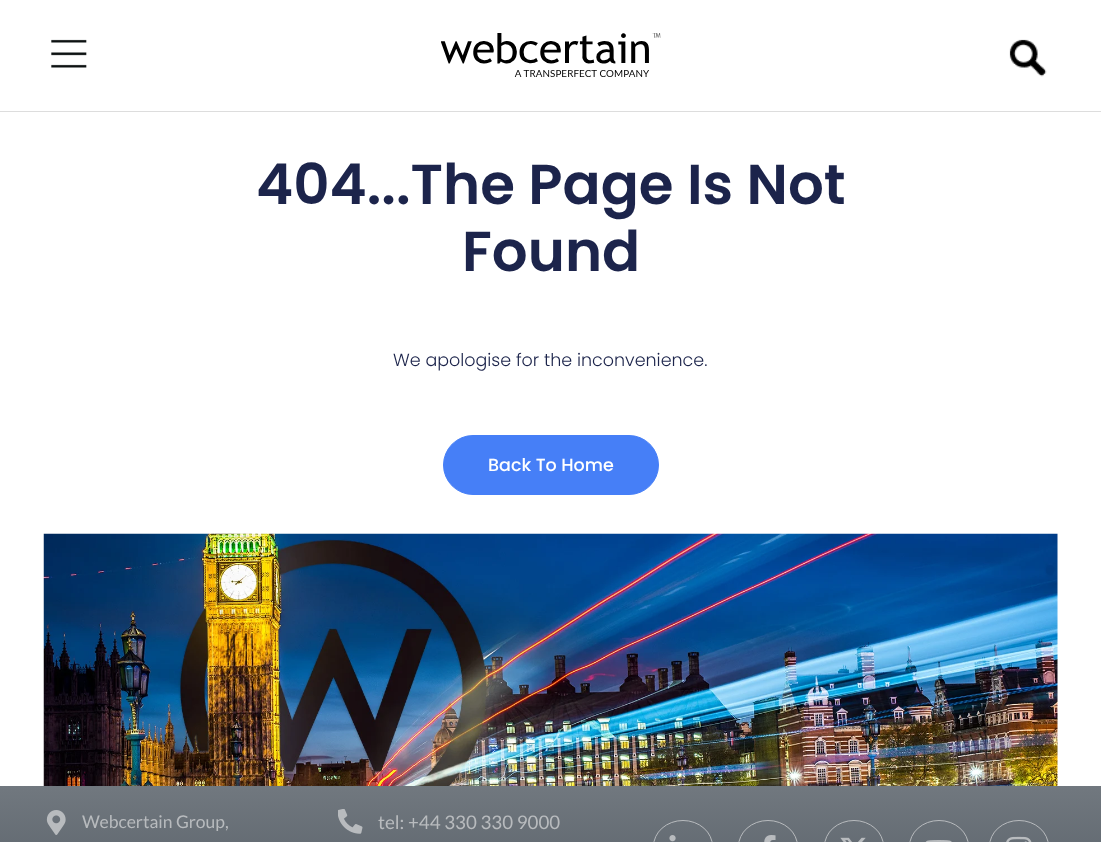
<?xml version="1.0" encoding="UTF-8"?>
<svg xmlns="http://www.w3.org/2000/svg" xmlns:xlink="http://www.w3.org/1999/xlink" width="1101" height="842">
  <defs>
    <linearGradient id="g1" gradientUnits="userSpaceOnUse" x1="551" y1="786" x2="551" y2="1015"><stop offset="0" stop-color="#71787f" /><stop offset="1" stop-color="#424b54" /></linearGradient>
  </defs>
  <rect width="100%" height="100%" fill="#ffffff" />
  <rect y="111" width="1101" height="1" fill="#dddddd" />
  <image x="51" y="39" width="36" height="29" xlink:href="image1.png" />
  <image x="441" y="33" width="220" height="44" xlink:href="image2.png" />
  <image x="1009" y="39" width="38" height="38" xlink:href="image3.png" />
  <rect x="443.5" y="435.5" width="215" height="59" rx="29.5" fill="#467ff7" stroke="#467ff7" />
  <image x="43" y="533" width="1015" height="253" xlink:href="image4.png" />
  <rect y="786" width="1101" height="56" fill="url(#g1)" />
  <image x="46" y="810" width="20" height="25" xlink:href="image5.png" />
  <image x="338" y="809" width="25" height="25" xlink:href="image6.png" />
  <rect x="653.5" y="820.5" width="59" height="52" rx="29.5" fill="none" stroke="#b8bbbe" />
  <image x="669" y="835" width="7" height="7" xlink:href="image7.png" />
  <rect x="738.5" y="820.5" width="59" height="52" rx="29.5" fill="none" stroke="#b8bbbe" />
  <image x="764" y="835" width="12" height="7" xlink:href="image8.png" />
  <rect x="824.5" y="820.5" width="59" height="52" rx="29.5" fill="none" stroke="#b8bbbe" />
  <image x="840" y="837" width="26" height="5" xlink:href="image9.png" />
  <rect x="909.5" y="820.5" width="59" height="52" rx="29.5" fill="none" stroke="#b8bbbe" />
  <image x="925" y="840" width="27" height="2" xlink:href="image10.png" />
  <rect x="989.5" y="820.5" width="59" height="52" rx="29.5" fill="none" stroke="#b8bbbe" />
  <image x="1006" y="836" width="26" height="6" xlink:href="image11.png" />
  <text x="256" y="204" style="font-family: Poppins; font-size: 56.25px; font-weight: 600; fill: #1c244b">404...The Page Is Not</text>
  <text x="462" y="271" style="font-family: Poppins; font-size: 56.25px; font-weight: 600; fill: #1c244b">Found</text>
  <text x="393" y="366" style="font-family: Poppins; font-size: 17.5px; font-weight: 300; fill: #1c244b">We apologise for the inconvenience.</text>
  <text x="488" y="471" style="font-family: Poppins; font-size: 17.5px; font-weight: 500; fill: #ffffff">Back To Home</text>
  <text x="82" y="828" style="font-family: Lato; font-size: 17.5px; fill: #b8bbbe">Webcertain Group,</text>
  <text x="378" y="829" style="font-family: Lato; font-size: 18.75px; fill: #b8bbbe">tel: +44 330 330 9000</text>
</svg>
